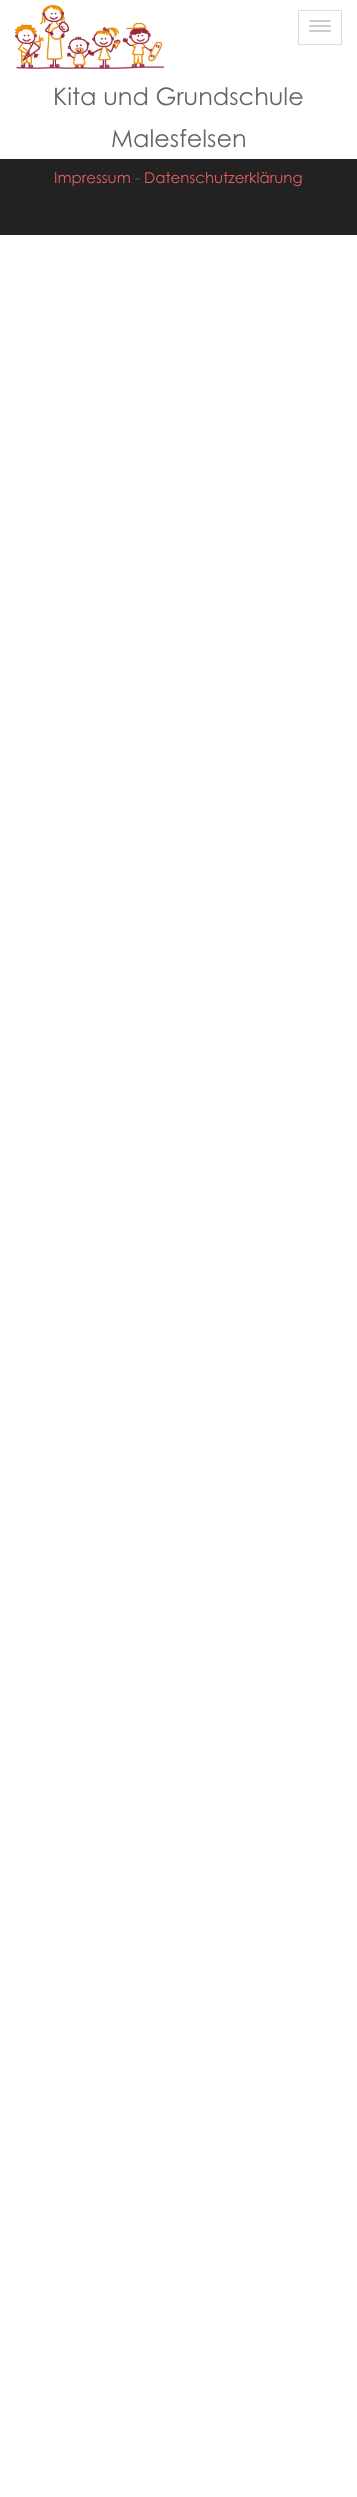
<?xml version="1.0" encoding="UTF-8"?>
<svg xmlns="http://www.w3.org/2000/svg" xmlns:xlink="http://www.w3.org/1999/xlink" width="357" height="2497">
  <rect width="100%" height="100%" fill="#ffffff" />
  <image x="15" y="5" width="149" height="64" xlink:href="image1.png" />
  <rect x="298.5" y="10.5" width="43" height="34" fill="none" stroke="#dddddd" />
  <rect x="309" y="20" width="22" height="2" rx="1" fill="#cccccc" />
  <rect x="309" y="25" width="22" height="2" rx="1" fill="#cccccc" />
  <rect x="309" y="30" width="22" height="2" rx="1" fill="#cccccc" />
  <rect y="159" width="357" height="76" fill="#222222" />
  <text x="53" y="105" style="font-family: Century Gothic; font-size: 24px; fill: #63656a">Kita und Grundschule</text>
  <text x="111" y="147" style="font-family: Century Gothic; font-size: 24px; fill: #63656a">Malesfelsen</text>
  <text x="54" y="183" style="font-family: Century Gothic; font-size: 15px; fill: #e75d5d">Impressum</text>
  <text x="135" y="183" style="font-family: Century Gothic; font-size: 15px; fill: #63656a">-</text>
  <text x="144" y="183" style="font-family: Century Gothic; font-size: 15px; fill: #e75d5d">Datenschutzerklärung</text>
</svg>
